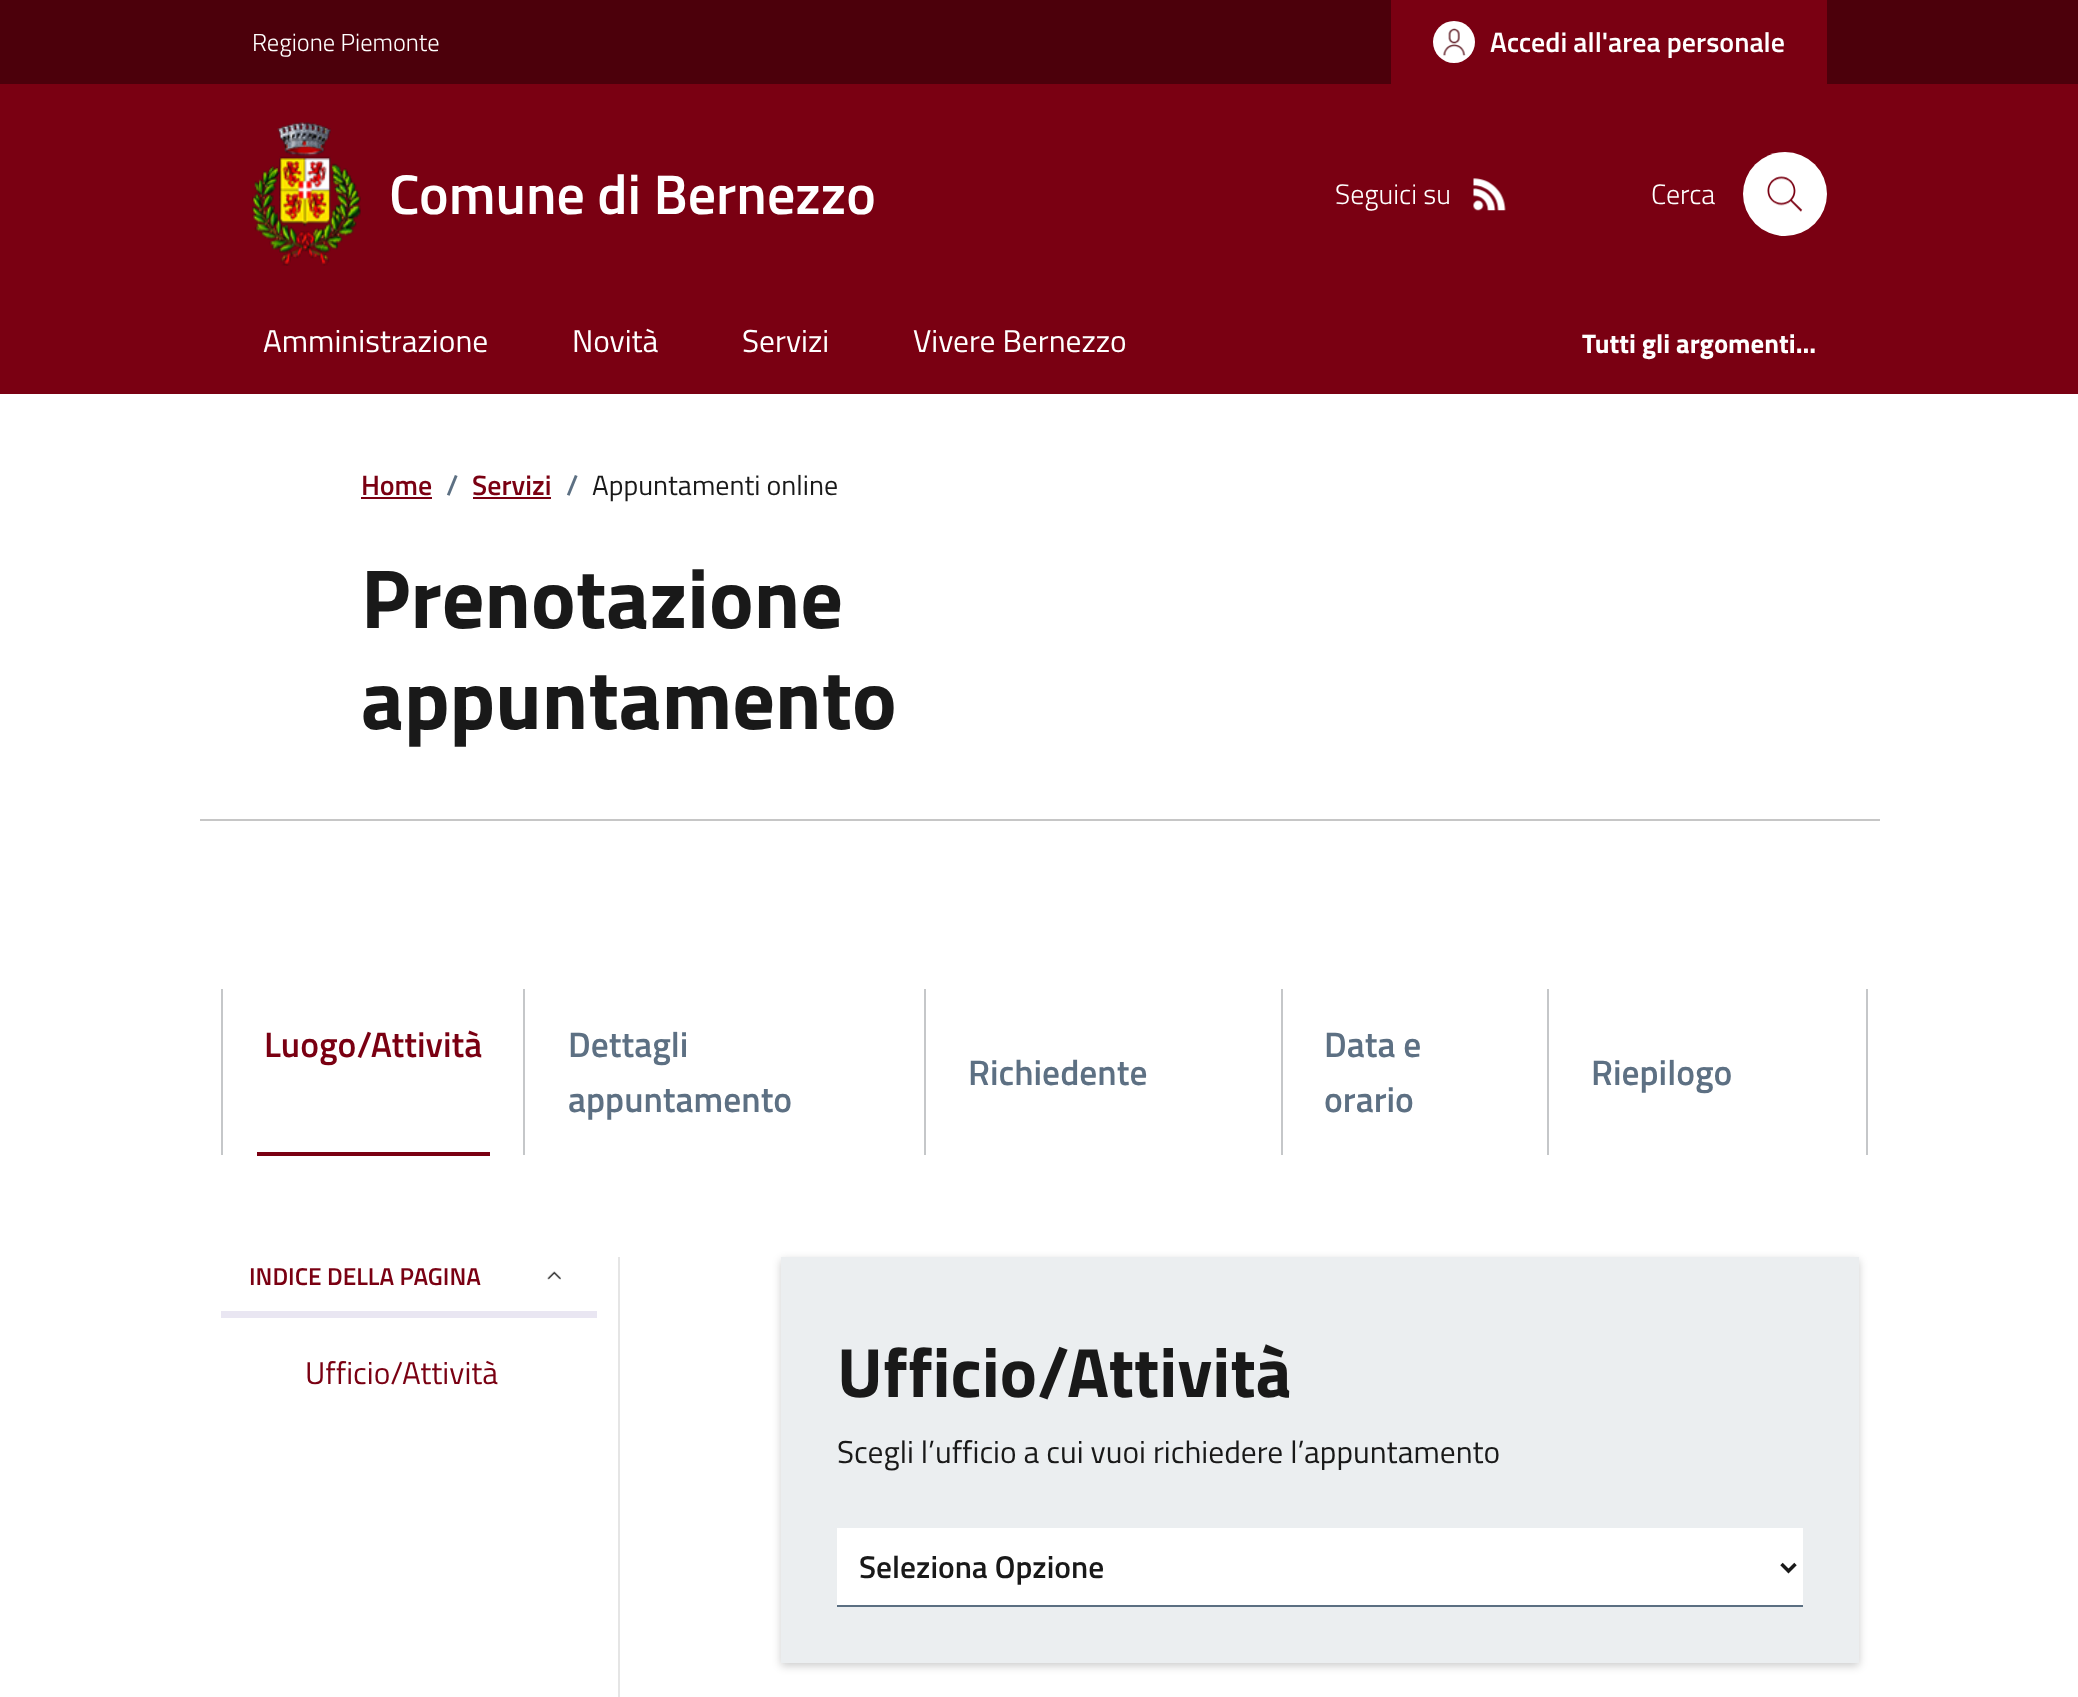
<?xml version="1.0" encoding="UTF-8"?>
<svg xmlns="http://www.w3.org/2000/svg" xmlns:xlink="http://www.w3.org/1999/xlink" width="2078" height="1697">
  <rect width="100%" height="100%" fill="#ffffff" />
  <rect width="2078" height="84" fill="#4c000b" />
  <rect x="1391" width="436" height="84" fill="#7a0012" />
  <circle cx="1454" cy="42" r="21" fill="#ffffff" />
  <image x="1443" y="28" width="23" height="28" xlink:href="image1.png" />
  <rect y="84" width="2078" height="310" fill="#7a0012" />
  <image x="252" y="122" width="109" height="144" xlink:href="image2.png" />
  <image x="1473" y="178" width="33" height="33" xlink:href="image3.png" />
  <circle cx="1785" cy="194" r="42" fill="#ffffff" />
  <image x="1767" y="176" width="36" height="36" xlink:href="image4.png" />
  <rect x="361" y="497" width="71" height="2" fill="#7a0012" />
  <rect x="473" y="497" width="78" height="2" fill="#7a0012" />
  <rect x="200" y="819" width="1680" height="2" fill="#c6c6c6" />
  <rect x="221" y="989" width="2" height="166" fill="#c5c7c9" />
  <rect x="257" y="1152" width="233" height="4" fill="#7a0012" />
  <rect x="523" y="989" width="2" height="166" fill="#c5c7c9" />
  <rect x="924" y="989" width="2" height="166" fill="#c5c7c9" />
  <rect x="1281" y="989" width="2" height="166" fill="#c5c7c9" />
  <rect x="1866" y="989" width="2" height="166" fill="#c5c7c9" />
  <rect x="1547" y="989" width="2" height="166" fill="#c5c7c9" />
  <rect x="618" y="1257" width="2" height="440" fill="#e5e5e5" />
  <image x="547" y="1271" width="14" height="9" xlink:href="image5.png" />
  <rect x="221" y="1311" width="376" height="7" fill="#e9e6f2" />
  <rect x="781" y="1260" width="1078" height="406" fill="#000000" fill-opacity="0.2" filter="blur(4px)" />
  <rect x="781" y="1257" width="1078" height="406" fill="#ebeef0" />
  <rect x="837" y="1528" width="966" height="77" fill="#ffffff" />
  <rect x="837" y="1605" width="966" height="2" fill="#5b6f82" />
  <path d="M 1781.5 1564 l 7 7 l 7 -7" fill="none" stroke="#1a1a1a" stroke-width="3.5" />
  <text x="252" y="51" style="font-family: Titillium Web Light; font-size: 24.5px; font-weight: 300; fill: #ffffff">Regione Piemonte</text>
  <text x="1490" y="52" style="font-family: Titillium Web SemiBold; font-size: 28px; font-weight: 600; fill: #ffffff">Accedi all'area personale</text>
  <text x="389" y="214" style="font-family: Titillium Web SemiBold; font-size: 56px; font-weight: 600; fill: #ffffff">Comune di Bernezzo</text>
  <text x="1335" y="204" style="font-family: Titillium Web Light; font-size: 28px; font-weight: 300; fill: #ffffff">Seguici su</text>
  <text x="1651" y="204" style="font-family: Titillium Web Light; font-size: 28px; font-weight: 300; fill: #ffffff">Cerca</text>
  <text x="263" y="352" style="font-family: Titillium Web; font-size: 31.5px; fill: #ffffff">Amministrazione</text>
  <text x="572" y="352" style="font-family: Titillium Web; font-size: 31.5px; fill: #ffffff">Novità</text>
  <text x="742" y="352" style="font-family: Titillium Web; font-size: 31.5px; fill: #ffffff">Servizi</text>
  <text x="913" y="352" style="font-family: Titillium Web; font-size: 31.5px; fill: #ffffff">Vivere Bernezzo</text>
  <text x="1582" y="353" style="font-family: Titillium Web; font-size: 26.75px; font-weight: bold; fill: #ffffff">Tutti gli argomenti...</text>
  <text x="361" y="495" style="font-family: Titillium Web SemiBold; font-size: 28px; font-weight: 600; fill: #7a0012">Home</text>
  <text x="446" y="495" style="font-family: Titillium Web SemiBold; font-size: 28px; font-weight: 600; fill: #5d7083">/</text>
  <text x="472" y="495" style="font-family: Titillium Web SemiBold; font-size: 28px; font-weight: 600; fill: #7a0012">Servizi</text>
  <text x="566" y="495" style="font-family: Titillium Web SemiBold; font-size: 28px; font-weight: 600; fill: #5d7083">/</text>
  <text x="592" y="495" style="font-family: Titillium Web; font-size: 28px; fill: #191919">Appuntamenti online</text>
  <text x="361" y="628" style="font-family: Titillium Web; font-size: 84px; font-weight: bold; fill: #191919">Prenotazione</text>
  <text x="361" y="729" style="font-family: Titillium Web; font-size: 84px; font-weight: bold; fill: #191919">appuntamento</text>
  <text x="264" y="1057" style="font-family: Titillium Web SemiBold; font-size: 35.5px; font-weight: 600; fill: #7a0012">Luogo/Attività</text>
  <text x="568" y="1057" style="font-family: Titillium Web SemiBold; font-size: 35.5px; font-weight: 600; fill: #5d7083">Dettagli</text>
  <text x="568" y="1112" style="font-family: Titillium Web SemiBold; font-size: 35.5px; font-weight: 600; fill: #5d7083">appuntamento</text>
  <text x="968" y="1085" style="font-family: Titillium Web SemiBold; font-size: 35.5px; font-weight: 600; fill: #5d7083">Richiedente</text>
  <text x="1324" y="1057" style="font-family: Titillium Web SemiBold; font-size: 35.5px; font-weight: 600; fill: #5d7083">Data e</text>
  <text x="1324" y="1112" style="font-family: Titillium Web SemiBold; font-size: 35.5px; font-weight: 600; fill: #5d7083">orario</text>
  <text x="1591" y="1085" style="font-family: Titillium Web SemiBold; font-size: 35.5px; font-weight: 600; fill: #5d7083">Riepilogo</text>
  <text x="249" y="1285" style="font-family: Titillium Web SemiBold; font-size: 24.5px; font-weight: 600; fill: #7a0012">INDICE DELLA PAGINA</text>
  <text x="305" y="1384" style="font-family: Titillium Web; font-size: 31.5px; fill: #7a0012">Ufficio/Attività</text>
  <text x="837" y="1397" style="font-family: Titillium Web; font-size: 70px; font-weight: bold; fill: #191919">Ufficio/Attività</text>
  <text x="837" y="1463" style="font-family: Titillium Web; font-size: 31.5px; fill: #191919">Scegli l’ufficio a cui vuoi richiedere l’appuntamento</text>
  <text x="859" y="1578" style="font-family: Titillium Web SemiBold; font-size: 31.5px; font-weight: 600; fill: #191919">Seleziona Opzione</text>
</svg>
